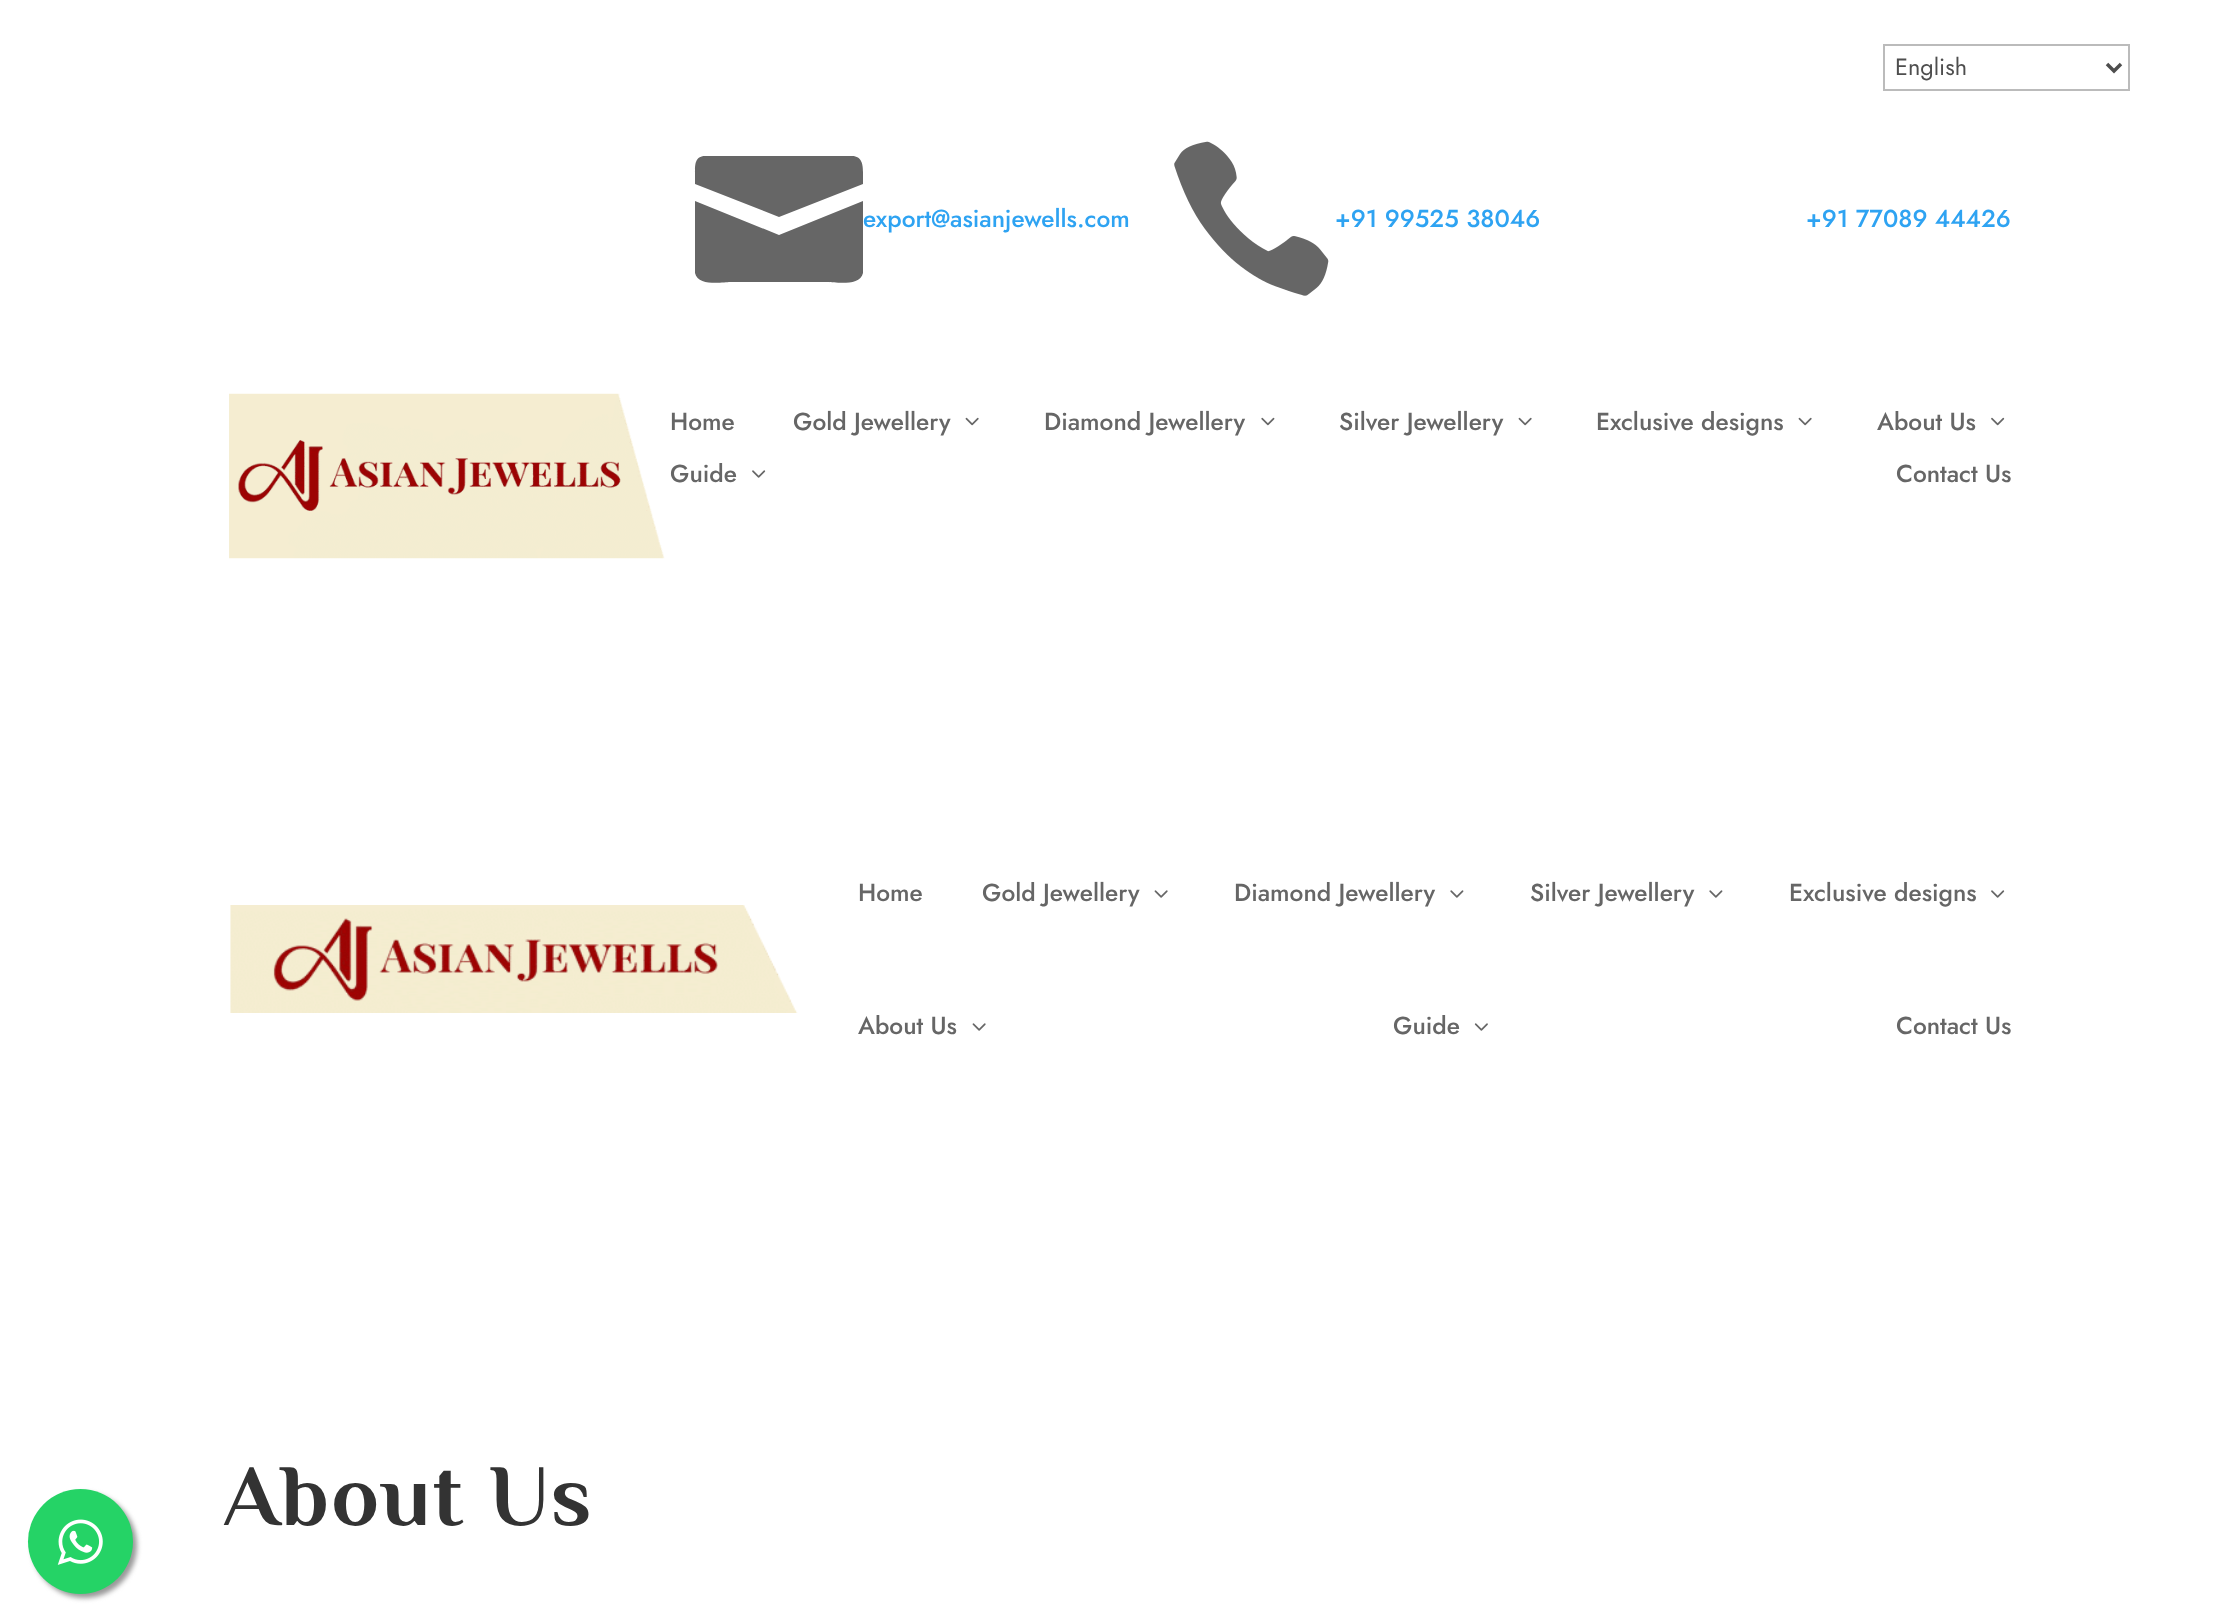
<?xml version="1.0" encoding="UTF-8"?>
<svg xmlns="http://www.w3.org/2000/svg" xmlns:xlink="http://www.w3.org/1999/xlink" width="2234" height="1619">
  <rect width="100%" height="100%" fill="#ffffff" />
  <rect x="1884" y="45" width="245" height="45" fill="none" stroke="#bbbbbb" stroke-width="2" />
  <path d="M 2107 64 l 7 7 l 7 -7" fill="none" stroke="#4e4e4e" stroke-width="3.5" />
  <path d="M 852 156 h -147 c -10 0 -10 9 -10 16 v 12 l 84 33 l 84 -33 v -12 c 0 -7 -1 -16 -11 -16 z m -157 45 v 72 c 3 14 29 9 35 9 h 98 c 6 0 32 5 35 -9 v -72 l -84 34 z" fill="#666666" />
  <image x="1174" y="141" width="155" height="155" xlink:href="image1.png" />
  <image x="229" y="393" width="436" height="166" xlink:href="image2.png" />
  <image x="965" y="417" width="14" height="9" xlink:href="image3.png" />
  <image x="1261" y="417" width="14" height="9" xlink:href="image4.png" />
  <image x="1518" y="417" width="14" height="9" xlink:href="image3.png" />
  <image x="1798" y="417" width="14" height="9" xlink:href="image3.png" />
  <image x="1991" y="417" width="14" height="9" xlink:href="image5.png" />
  <image x="752" y="470" width="14" height="8" xlink:href="image6.png" />
  <image x="230" y="905" width="568" height="108" xlink:href="image7.png" />
  <image x="1154" y="890" width="14" height="8" xlink:href="image8.png" />
  <image x="1450" y="890" width="14" height="8" xlink:href="image9.png" />
  <image x="1709" y="890" width="14" height="8" xlink:href="image9.png" />
  <image x="1991" y="890" width="14" height="8" xlink:href="image6.png" />
  <image x="972" y="1023" width="14" height="8" xlink:href="image8.png" />
  <image x="1474" y="1023" width="14" height="8" xlink:href="image10.png" />
  <rect x="32" y="1493" width="105" height="105" rx="52.5" fill="#999999" filter="blur(2.5px)" />
  <circle cx="80.5" cy="1541.5" r="52.5" fill="#25d366" />
  <image x="57" y="1519" width="46" height="46" xlink:href="image11.png" />
  <text x="1895" y="75" style="font-family: Jost; font-size: 23.5px; fill: #4e4e4e">English</text>
  <text x="863" y="227" style="font-family: Jost; font-size: 24.5px; font-weight: 500; fill: #2ea3f2">export@asianjewells.com</text>
  <text x="1335" y="227" style="font-family: Jost; font-size: 24.5px; font-weight: 500; fill: #2ea3f2">+91 99525 38046</text>
  <text x="1806" y="227" style="font-family: Jost; font-size: 24.5px; font-weight: 500; fill: #2ea3f2">+91 77089 44426</text>
  <text x="670" y="430" style="font-family: Jost; font-size: 24.5px; font-weight: 500; fill: #666666">Home</text>
  <text x="793" y="430" style="font-family: Jost; font-size: 24.5px; font-weight: 500; fill: #666666">Gold Jewellery</text>
  <text x="1044" y="430" style="font-family: Jost; font-size: 24.5px; font-weight: 500; fill: #666666">Diamond Jewellery</text>
  <text x="1339" y="430" style="font-family: Jost; font-size: 24.5px; font-weight: 500; fill: #666666">Silver Jewellery</text>
  <text x="1596" y="430" style="font-family: Jost; font-size: 24.5px; font-weight: 500; fill: #666666">Exclusive designs</text>
  <text x="1877" y="430" style="font-family: Jost; font-size: 24.5px; font-weight: 500; fill: #666666">About Us</text>
  <text x="670" y="482" style="font-family: Jost; font-size: 24.5px; font-weight: 500; fill: #666666">Guide</text>
  <text x="1896" y="482" style="font-family: Jost; font-size: 24.5px; font-weight: 500; fill: #666666">Contact Us</text>
  <text x="858" y="901" style="font-family: Jost; font-size: 24.5px; font-weight: 500; fill: #666666">Home</text>
  <text x="982" y="901" style="font-family: Jost; font-size: 24.5px; font-weight: 500; fill: #666666">Gold Jewellery</text>
  <text x="1234" y="901" style="font-family: Jost; font-size: 24.5px; font-weight: 500; fill: #666666">Diamond Jewellery</text>
  <text x="1530" y="901" style="font-family: Jost; font-size: 24.5px; font-weight: 500; fill: #666666">Silver Jewellery</text>
  <text x="1789" y="901" style="font-family: Jost; font-size: 24.5px; font-weight: 500; fill: #666666">Exclusive designs</text>
  <text x="858" y="1034" style="font-family: Jost; font-size: 24.5px; font-weight: 500; fill: #666666">About Us</text>
  <text x="1393" y="1034" style="font-family: Jost; font-size: 24.5px; font-weight: 500; fill: #666666">Guide</text>
  <text x="1896" y="1034" style="font-family: Jost; font-size: 24.5px; font-weight: 500; fill: #666666">Contact Us</text>
  <text x="223" y="1525" style="font-family: Philosopher; font-size: 87.5px; font-weight: bold; letter-spacing: 1.75px; fill: #333333">About Us</text>
</svg>
